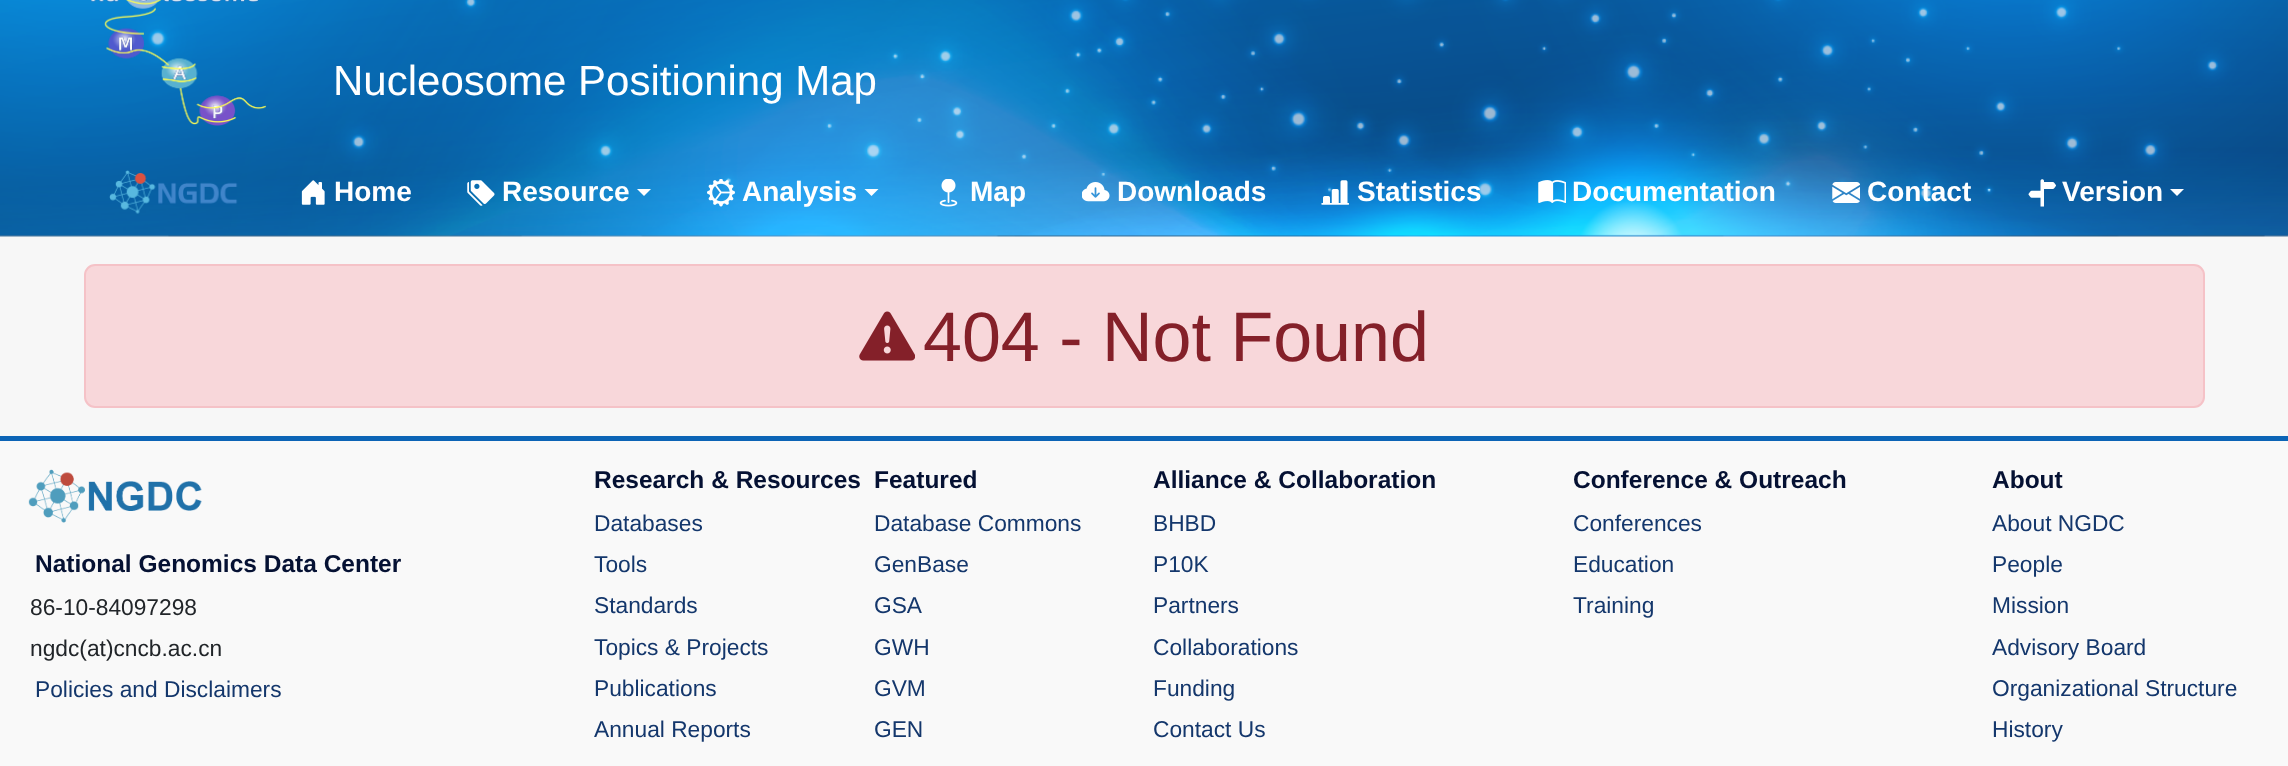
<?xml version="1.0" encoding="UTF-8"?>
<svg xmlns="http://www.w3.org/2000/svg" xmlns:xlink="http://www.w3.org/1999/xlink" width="2288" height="766">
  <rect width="100%" height="100%" fill="#ffffff" />
  <rect y="236" width="2288" height="200" fill="#f7f7f7" />
  <image x="0" y="0" width="2288" height="237" xlink:href="image1.png" />
  <image x="91" y="0" width="176" height="126" xlink:href="image2.png" />
  <image x="109" y="170" width="129" height="44" xlink:href="image3.png" />
  <image x="301" y="180" width="24" height="25" xlink:href="image4.png" />
  <image x="467" y="180" width="28" height="26" xlink:href="image5.png" />
  <path d="M 637 189 h 14 l -7 7 z" fill="#ffffff" />
  <image x="707" y="179" width="28" height="28" xlink:href="image6.png" />
  <path d="M 864.5 189 h 14 l -7 7 z" fill="#ffffff" />
  <image x="939" y="179" width="19" height="28" xlink:href="image7.png" />
  <image x="1082" y="182" width="28" height="20" xlink:href="image8.png" />
  <image x="1321" y="180" width="28" height="25" xlink:href="image9.png" />
  <image x="1538" y="180" width="28" height="23" xlink:href="image10.png" />
  <image x="1832" y="182" width="28" height="21" xlink:href="image11.png" />
  <image x="2028" y="179" width="28" height="28" xlink:href="image12.png" />
  <path d="M 2170 189 h 14 l -7 7 z" fill="#ffffff" />
  <rect x="85" y="265" width="2119" height="142" rx="10" fill="#f8d7da" stroke="#f5c2c7" stroke-width="2" />
  <image x="859" y="311" width="56" height="50" xlink:href="image13.png" />
  <rect y="436" width="2288" height="5" fill="#0c64b6" />
  <rect y="441" width="2288" height="325" fill="#f9f9f9" />
  <image x="28" y="469" width="174" height="54" xlink:href="image14.png" />
  <text x="333" y="95" style="font-family: Liberation Sans; font-size: 42px; fill: #ffffff">Nucleosome Positioning Map</text>
  <text x="334" y="201" style="font-family: Liberation Sans; font-size: 28px; font-weight: bold; fill: #ffffff">Home</text>
  <text x="502" y="201" style="font-family: Liberation Sans; font-size: 28px; font-weight: bold; fill: #ffffff">Resource</text>
  <text x="742" y="201" style="font-family: Liberation Sans; font-size: 28px; font-weight: bold; fill: #ffffff">Analysis</text>
  <text x="970" y="201" style="font-family: Liberation Sans; font-size: 28px; font-weight: bold; fill: #ffffff">Map</text>
  <text x="1117" y="201" style="font-family: Liberation Sans; font-size: 28px; font-weight: bold; fill: #ffffff">Downloads</text>
  <text x="1357" y="201" style="font-family: Liberation Sans; font-size: 28px; font-weight: bold; fill: #ffffff">Statistics</text>
  <text x="1572" y="201" style="font-family: Liberation Sans; font-size: 28px; font-weight: bold; fill: #ffffff">Documentation</text>
  <text x="1867" y="201" style="font-family: Liberation Sans; font-size: 28px; font-weight: bold; fill: #ffffff">Contact</text>
  <text x="2062" y="201" style="font-family: Liberation Sans; font-size: 28px; font-weight: bold; fill: #ffffff">Version</text>
  <text x="923" y="361" style="font-family: Liberation Sans; font-size: 70px; fill: #842029">404 - Not Found</text>
  <text x="35" y="572" style="font-family: Liberation Sans; font-size: 24.5px; font-weight: bold; fill: #051133">National Genomics Data Center</text>
  <text x="30" y="615" style="font-family: Liberation Sans; font-size: 22.75px; fill: #212529">86-10-84097298</text>
  <text x="30" y="656" style="font-family: Liberation Sans; font-size: 22.75px; fill: #212529">ngdc(at)cncb.ac.cn</text>
  <text x="35" y="697" style="font-family: Liberation Sans; font-size: 22.75px; fill: #14376c">Policies and Disclaimers</text>
  <text x="594" y="488" style="font-family: Liberation Sans; font-size: 24.5px; font-weight: bold; fill: #051133">Research &amp; Resources</text>
  <text x="594" y="531" style="font-family: Liberation Sans; font-size: 22.75px; fill: #14376c">Databases</text>
  <text x="594" y="572" style="font-family: Liberation Sans; font-size: 22.75px; fill: #14376c">Tools</text>
  <text x="594" y="613" style="font-family: Liberation Sans; font-size: 22.75px; fill: #14376c">Standards</text>
  <text x="594" y="655" style="font-family: Liberation Sans; font-size: 22.75px; fill: #14376c">Topics &amp; Projects</text>
  <text x="594" y="696" style="font-family: Liberation Sans; font-size: 22.75px; fill: #14376c">Publications</text>
  <text x="594" y="737" style="font-family: Liberation Sans; font-size: 22.75px; fill: #14376c">Annual Reports</text>
  <text x="874" y="488" style="font-family: Liberation Sans; font-size: 24.5px; font-weight: bold; fill: #051133">Featured</text>
  <text x="874" y="531" style="font-family: Liberation Sans; font-size: 22.75px; fill: #14376c">Database Commons</text>
  <text x="874" y="572" style="font-family: Liberation Sans; font-size: 22.75px; fill: #14376c">GenBase</text>
  <text x="874" y="613" style="font-family: Liberation Sans; font-size: 22.75px; fill: #14376c">GSA</text>
  <text x="874" y="655" style="font-family: Liberation Sans; font-size: 22.75px; fill: #14376c">GWH</text>
  <text x="874" y="696" style="font-family: Liberation Sans; font-size: 22.75px; fill: #14376c">GVM</text>
  <text x="874" y="737" style="font-family: Liberation Sans; font-size: 22.75px; fill: #14376c">GEN</text>
  <text x="1153" y="488" style="font-family: Liberation Sans; font-size: 24.5px; font-weight: bold; fill: #051133">Alliance &amp; Collaboration</text>
  <text x="1153" y="531" style="font-family: Liberation Sans; font-size: 22.75px; fill: #14376c">BHBD</text>
  <text x="1153" y="572" style="font-family: Liberation Sans; font-size: 22.75px; fill: #14376c">P10K</text>
  <text x="1153" y="613" style="font-family: Liberation Sans; font-size: 22.75px; fill: #14376c">Partners</text>
  <text x="1153" y="655" style="font-family: Liberation Sans; font-size: 22.75px; fill: #14376c">Collaborations</text>
  <text x="1153" y="696" style="font-family: Liberation Sans; font-size: 22.75px; fill: #14376c">Funding</text>
  <text x="1153" y="737" style="font-family: Liberation Sans; font-size: 22.75px; fill: #14376c">Contact Us</text>
  <text x="1573" y="488" style="font-family: Liberation Sans; font-size: 24.5px; font-weight: bold; fill: #051133">Conference &amp; Outreach</text>
  <text x="1573" y="531" style="font-family: Liberation Sans; font-size: 22.75px; fill: #14376c">Conferences</text>
  <text x="1573" y="572" style="font-family: Liberation Sans; font-size: 22.75px; fill: #14376c">Education</text>
  <text x="1573" y="613" style="font-family: Liberation Sans; font-size: 22.75px; fill: #14376c">Training</text>
  <text x="1992" y="488" style="font-family: Liberation Sans; font-size: 24.5px; font-weight: bold; fill: #051133">About</text>
  <text x="1992" y="531" style="font-family: Liberation Sans; font-size: 22.75px; fill: #14376c">About NGDC</text>
  <text x="1992" y="572" style="font-family: Liberation Sans; font-size: 22.75px; fill: #14376c">People</text>
  <text x="1992" y="613" style="font-family: Liberation Sans; font-size: 22.75px; fill: #14376c">Mission</text>
  <text x="1992" y="655" style="font-family: Liberation Sans; font-size: 22.75px; fill: #14376c">Advisory Board</text>
  <text x="1992" y="696" style="font-family: Liberation Sans; font-size: 22.75px; fill: #14376c">Organizational Structure</text>
  <text x="1992" y="737" style="font-family: Liberation Sans; font-size: 22.75px; fill: #14376c">History</text>
</svg>
